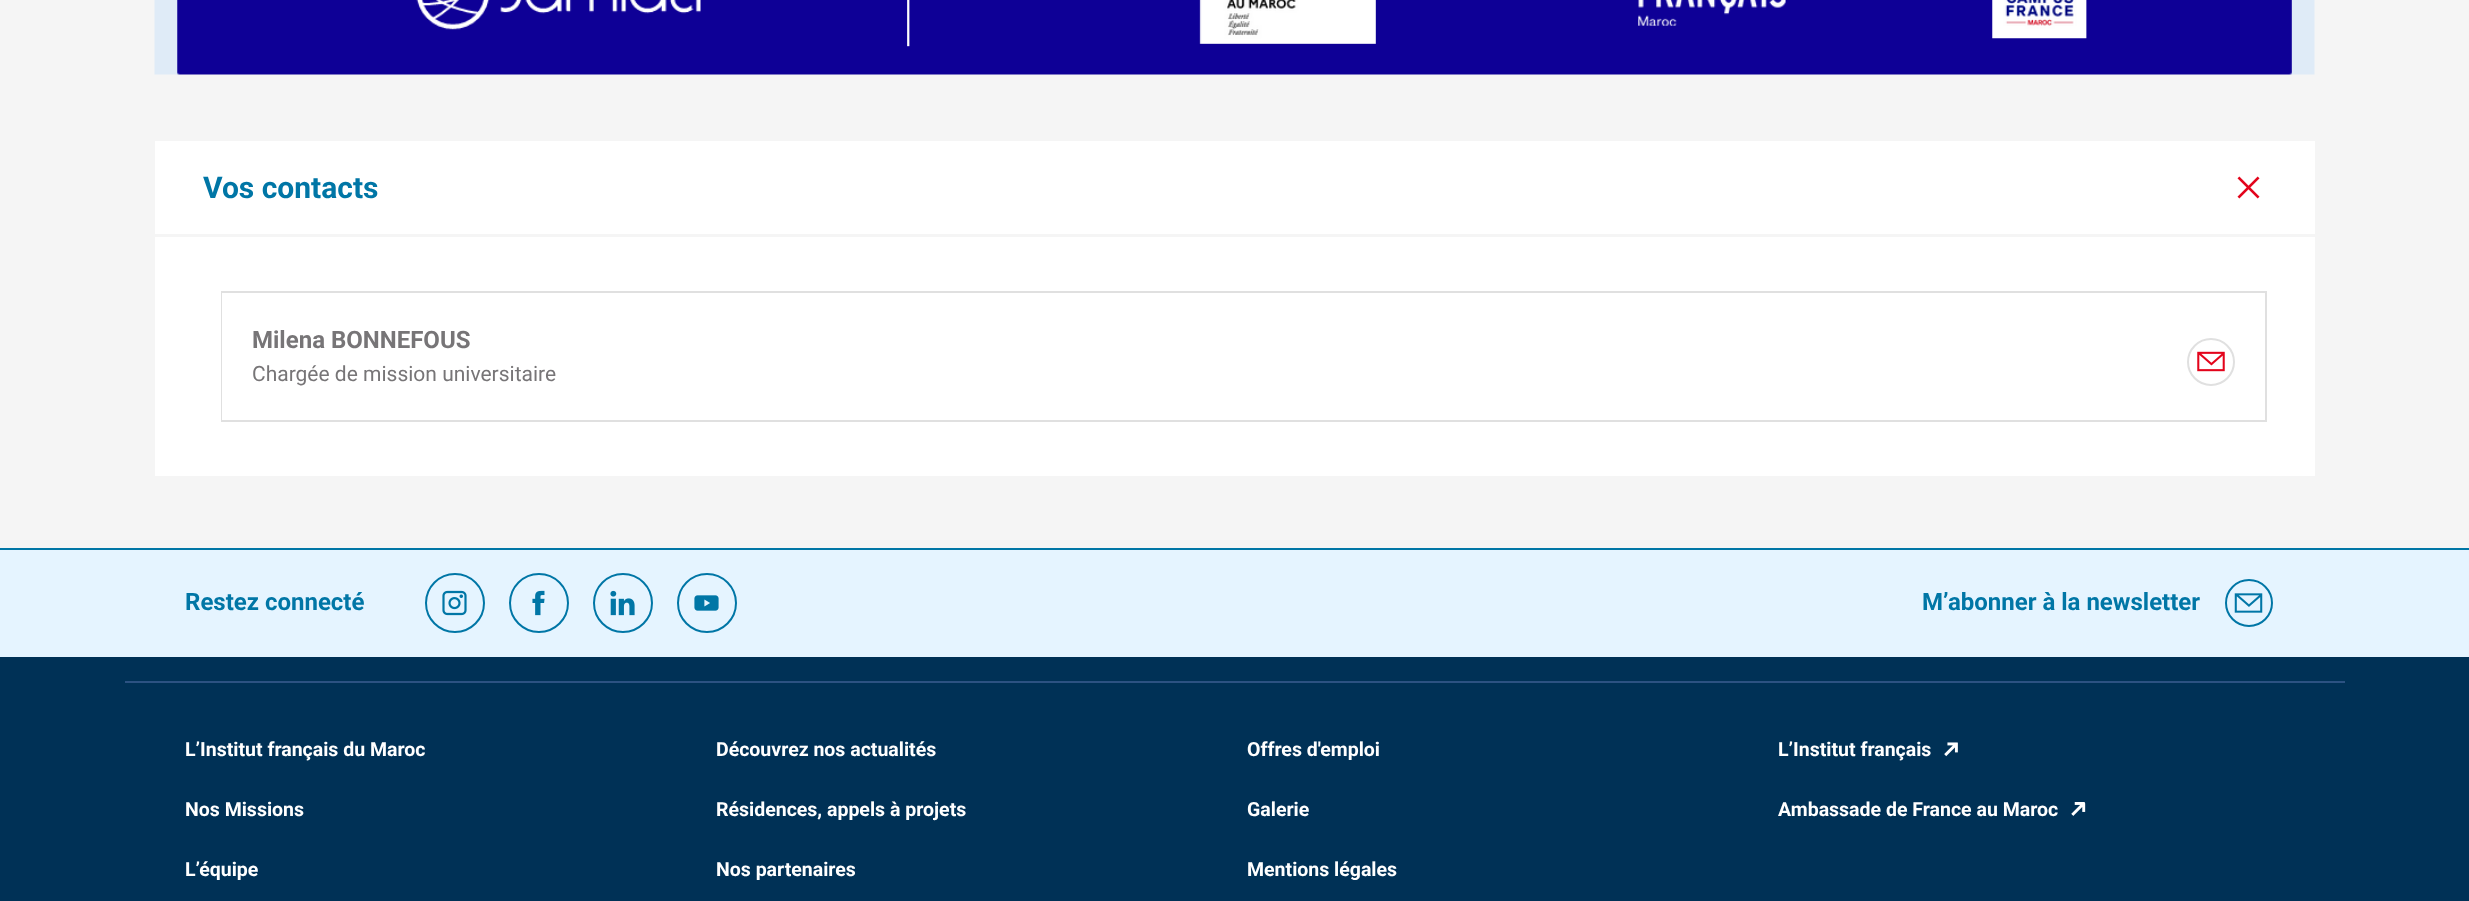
<?xml version="1.0" encoding="UTF-8"?>
<svg xmlns="http://www.w3.org/2000/svg" xmlns:xlink="http://www.w3.org/1999/xlink" width="2469" height="901">
  <rect width="100%" height="100%" fill="#f5f5f5" />
  <image x="154" y="0" width="2161" height="75" xlink:href="image1.png" />
  <rect x="155" y="141" width="2160" height="93" fill="#ffffff" />
  <image x="2237" y="176" width="23" height="23" xlink:href="image2.png" />
  <rect x="155" y="237" width="2160" height="239" fill="#ffffff" />
  <rect x="222" y="292" width="2044" height="129" fill="none" stroke="#e0e0e0" stroke-width="2" />
  <rect x="222" y="293" width="1" height="127" fill="#ffffff" />
  <circle cx="2211" cy="362" r="23" fill="none" stroke="#e0e0e0" stroke-width="2" />
  <image x="2197" y="351" width="28" height="21" xlink:href="image3.png" />
  <rect y="550" width="2469" height="107" fill="#e5f4ff" />
  <rect y="548" width="2469" height="2" fill="#0076a6" />
  <circle cx="455" cy="603" r="29" fill="none" stroke="#0076a6" stroke-width="2" />
  <image x="442" y="590" width="25" height="26" xlink:href="image4.png" />
  <circle cx="539" cy="603" r="29" fill="none" stroke="#0076a6" stroke-width="2" />
  <image x="532" y="590" width="13" height="26" xlink:href="image5.png" />
  <circle cx="623" cy="603" r="29" fill="none" stroke="#0076a6" stroke-width="2" />
  <image x="610" y="590" width="25" height="26" xlink:href="image6.png" />
  <circle cx="707" cy="603" r="29" fill="none" stroke="#0076a6" stroke-width="2" />
  <image x="694" y="595" width="25" height="16" xlink:href="image7.png" />
  <circle cx="2249" cy="603" r="23" fill="none" stroke="#0076a6" stroke-width="2" />
  <image x="2234" y="593" width="29" height="20" xlink:href="image8.png" />
  <rect y="657" width="2469" height="244" fill="#003156" />
  <rect x="125" y="681" width="2220" height="2" fill="#2c5282" />
  <image x="1944" y="742" width="14" height="15" xlink:href="image9.png" />
  <image x="2071" y="802" width="15" height="14" xlink:href="image10.png" />
  <text x="203" y="198" style="font-family: Roboto; font-size: 30px; font-weight: bold; fill: #0076a6">Vos contacts</text>
  <text x="252" y="348" style="font-family: Roboto; font-size: 24px; font-weight: bold; fill: #777577">Milena BONNEFOUS</text>
  <text x="252" y="381" style="font-family: Roboto; font-size: 21px; fill: #777577">Chargée de mission universitaire</text>
  <text x="185" y="610" style="font-family: Roboto; font-size: 24px; font-weight: bold; fill: #0076a6">Restez connecté</text>
  <text x="1922" y="610" style="font-family: Roboto; font-size: 24px; font-weight: bold; fill: #0076a6">M’abonner à la newsletter</text>
  <text x="185" y="756" style="font-family: Roboto; font-size: 19.5px; font-weight: bold; fill: #ffffff">L’Institut français du Maroc</text>
  <text x="185" y="816" style="font-family: Roboto; font-size: 19.5px; font-weight: bold; fill: #ffffff">Nos Missions</text>
  <text x="185" y="876" style="font-family: Roboto; font-size: 19.5px; font-weight: bold; fill: #ffffff">L’équipe</text>
  <text x="716" y="756" style="font-family: Roboto; font-size: 19.5px; font-weight: bold; fill: #ffffff">Découvrez nos actualités</text>
  <text x="716" y="816" style="font-family: Roboto; font-size: 19.5px; font-weight: bold; fill: #ffffff">Résidences, appels à projets</text>
  <text x="716" y="876" style="font-family: Roboto; font-size: 19.5px; font-weight: bold; fill: #ffffff">Nos partenaires</text>
  <text x="1247" y="756" style="font-family: Roboto; font-size: 19.5px; font-weight: bold; fill: #ffffff">Offres d'emploi</text>
  <text x="1247" y="816" style="font-family: Roboto; font-size: 19.5px; font-weight: bold; fill: #ffffff">Galerie</text>
  <text x="1247" y="876" style="font-family: Roboto; font-size: 19.5px; font-weight: bold; fill: #ffffff">Mentions légales</text>
  <text x="1778" y="756" style="font-family: Roboto; font-size: 19.5px; font-weight: bold; fill: #ffffff">L’Institut français</text>
  <text x="1778" y="816" style="font-family: Roboto; font-size: 19.5px; font-weight: bold; fill: #ffffff">Ambassade de France au Maroc</text>
</svg>
